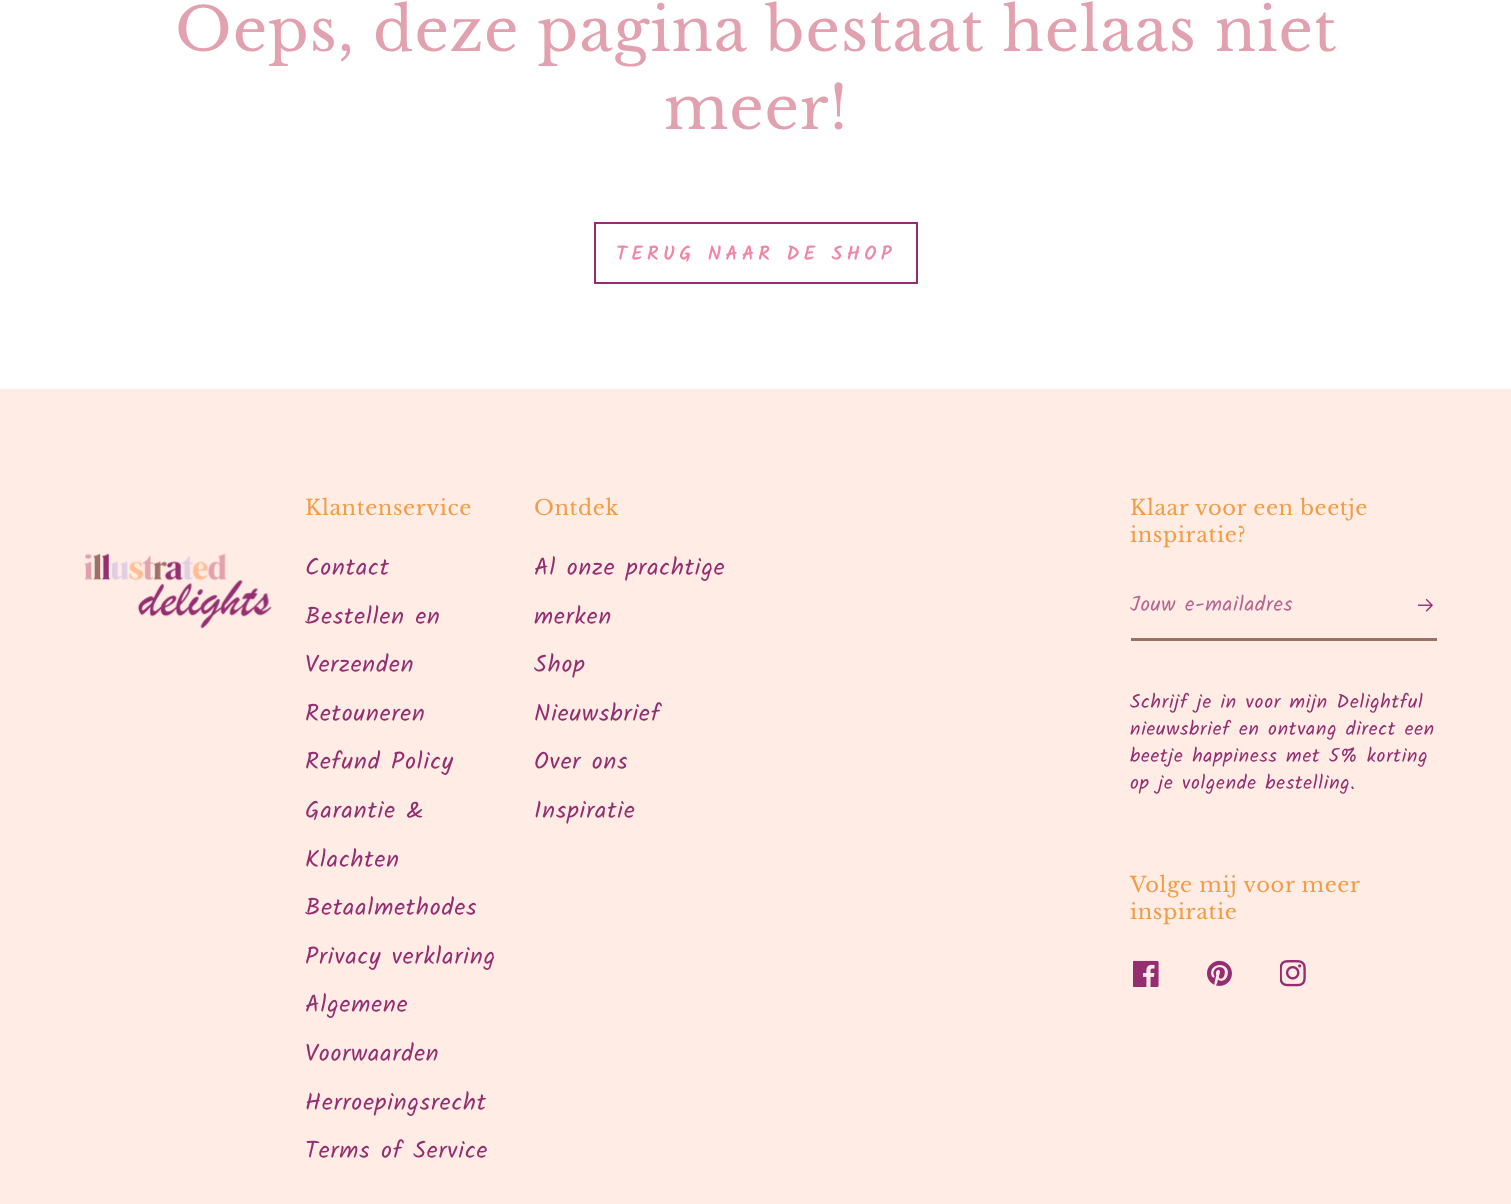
<?xml version="1.0" encoding="UTF-8"?>
<svg xmlns="http://www.w3.org/2000/svg" xmlns:xlink="http://www.w3.org/1999/xlink" width="1511" height="1204">
  <rect width="100%" height="100%" fill="#ffffff" />
  <rect x="595" y="223" width="322" height="60" fill="none" stroke="#942e71" stroke-width="2" />
  <rect y="389" width="1511" height="815" fill="#ffece4" />
  <image x="84" y="553" width="188" height="76" xlink:href="image1.png" />
  <rect x="1131" y="638" width="306" height="3" fill="#9e6f67" />
  <image x="1418" y="599" width="15" height="13" xlink:href="image2.png" />
  <image x="1133" y="960" width="26" height="27" xlink:href="image3.png" />
  <image x="1207" y="960" width="25" height="26" xlink:href="image4.png" />
  <image x="1280" y="960" width="26" height="27" xlink:href="image5.png" />
  <text x="175" y="51" style="font-family: Libre Baskerville; font-size: 60px; letter-spacing: 0.9px; fill: #e2a1ae">Oeps, deze pagina bestaat helaas niet</text>
  <text x="664" y="129" style="font-family: Libre Baskerville; font-size: 60px; letter-spacing: 0.9px; fill: #e2a1ae">meer!</text>
  <text x="616" y="260" style="font-family: Kalam; font-size: 19.5px; font-weight: bold; letter-spacing: 4.5px; fill: #f086a4">TERUG NAAR DE SHOP</text>
  <text x="305" y="515" style="font-family: Libre Baskerville; font-size: 21px; letter-spacing: 0.6px; fill: #f29c46">Klantenservice</text>
  <text x="305" y="575" style="font-family: Kalam; font-size: 24px; letter-spacing: 0.9px; fill: #942e71">Contact</text>
  <text x="305" y="624" style="font-family: Kalam; font-size: 24px; letter-spacing: 0.9px; fill: #942e71">Bestellen en</text>
  <text x="305" y="672" style="font-family: Kalam; font-size: 24px; letter-spacing: 0.9px; fill: #942e71">Verzenden</text>
  <text x="305" y="721" style="font-family: Kalam; font-size: 24px; letter-spacing: 0.9px; fill: #942e71">Retouneren</text>
  <text x="305" y="769" style="font-family: Kalam; font-size: 24px; letter-spacing: 0.9px; fill: #942e71">Refund Policy</text>
  <text x="305" y="818" style="font-family: Kalam; font-size: 24px; letter-spacing: 0.9px; fill: #942e71">Garantie &amp;</text>
  <text x="305" y="867" style="font-family: Kalam; font-size: 24px; letter-spacing: 0.9px; fill: #942e71">Klachten</text>
  <text x="305" y="915" style="font-family: Kalam; font-size: 24px; letter-spacing: 0.9px; fill: #942e71">Betaalmethodes</text>
  <text x="305" y="964" style="font-family: Kalam; font-size: 24px; letter-spacing: 0.9px; fill: #942e71">Privacy verklaring</text>
  <text x="305" y="1012" style="font-family: Kalam; font-size: 24px; letter-spacing: 0.9px; fill: #942e71">Algemene</text>
  <text x="305" y="1061" style="font-family: Kalam; font-size: 24px; letter-spacing: 0.9px; fill: #942e71">Voorwaarden</text>
  <text x="305" y="1110" style="font-family: Kalam; font-size: 24px; letter-spacing: 0.9px; fill: #942e71">Herroepingsrecht</text>
  <text x="305" y="1158" style="font-family: Kalam; font-size: 24px; letter-spacing: 0.9px; fill: #942e71">Terms of Service</text>
  <text x="534" y="515" style="font-family: Libre Baskerville; font-size: 21px; letter-spacing: 0.6px; fill: #f29c46">Ontdek</text>
  <text x="534" y="575" style="font-family: Kalam; font-size: 24px; letter-spacing: 0.9px; fill: #942e71">Al onze prachtige</text>
  <text x="534" y="624" style="font-family: Kalam; font-size: 24px; letter-spacing: 0.9px; fill: #942e71">merken</text>
  <text x="534" y="672" style="font-family: Kalam; font-size: 24px; letter-spacing: 0.9px; fill: #942e71">Shop</text>
  <text x="534" y="721" style="font-family: Kalam; font-size: 24px; letter-spacing: 0.9px; fill: #942e71">Nieuwsbrief</text>
  <text x="534" y="769" style="font-family: Kalam; font-size: 24px; letter-spacing: 0.9px; fill: #942e71">Over ons</text>
  <text x="534" y="818" style="font-family: Kalam; font-size: 24px; letter-spacing: 0.9px; fill: #942e71">Inspiratie</text>
  <text x="1130" y="515" style="font-family: Libre Baskerville; font-size: 21px; letter-spacing: 0.6px; fill: #f29c46">Klaar voor een beetje</text>
  <text x="1130" y="542" style="font-family: Libre Baskerville; font-size: 21px; letter-spacing: 0.6px; fill: #f29c46">inspiratie?</text>
  <text x="1130" y="611" style="font-family: Kalam; font-size: 21px; letter-spacing: 0.6px; fill: #b46794">Jouw e-mailadres</text>
  <text x="1130" y="708" style="font-family: Kalam; font-size: 19.5px; letter-spacing: 0.75px; fill: #942e71">Schrijf je in voor mijn Delightful</text>
  <text x="1130" y="735" style="font-family: Kalam; font-size: 19.5px; letter-spacing: 0.75px; fill: #942e71">nieuwsbrief en ontvang direct een</text>
  <text x="1130" y="762" style="font-family: Kalam; font-size: 19.5px; letter-spacing: 0.75px; fill: #942e71">beetje happiness met 5% korting</text>
  <text x="1130" y="789" style="font-family: Kalam; font-size: 19.5px; letter-spacing: 0.75px; fill: #942e71">op je volgende bestelling.</text>
  <text x="1130" y="892" style="font-family: Libre Baskerville; font-size: 21px; letter-spacing: 0.6px; fill: #f29c46">Volge mij voor meer</text>
  <text x="1130" y="919" style="font-family: Libre Baskerville; font-size: 21px; letter-spacing: 0.6px; fill: #f29c46">inspiratie</text>
</svg>
